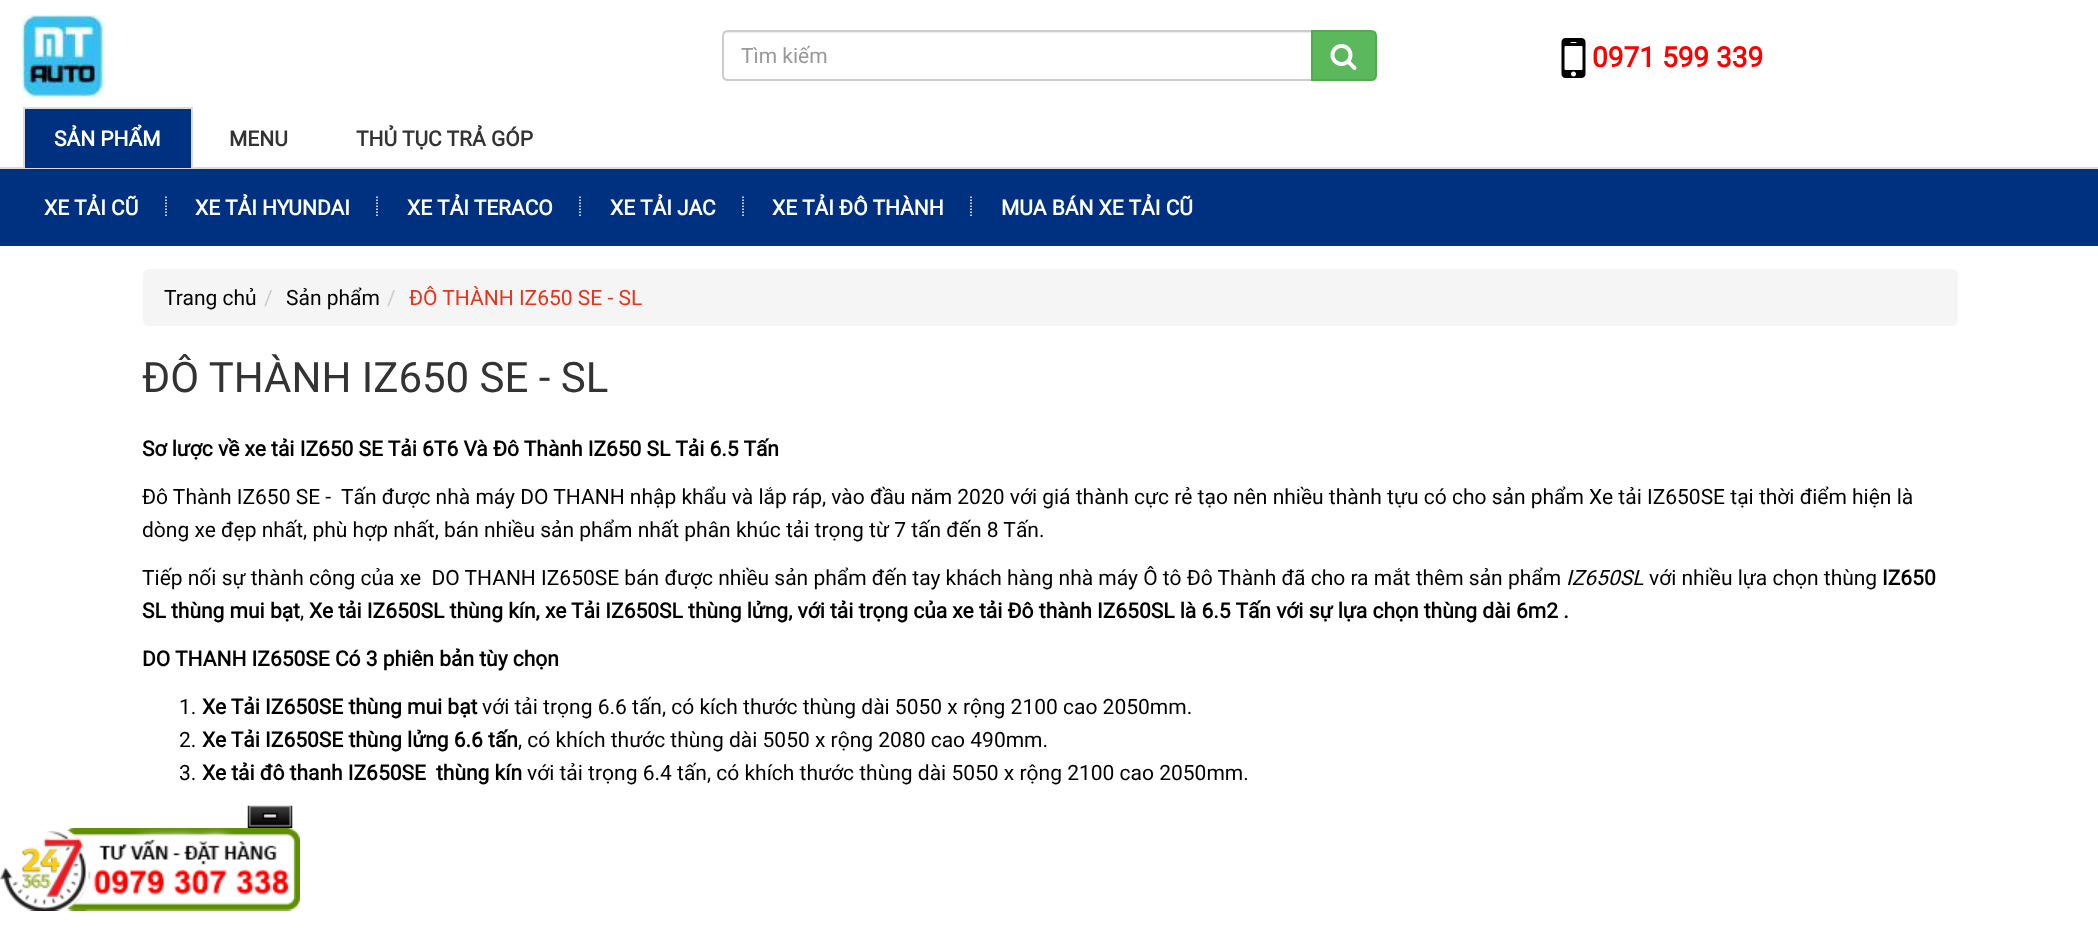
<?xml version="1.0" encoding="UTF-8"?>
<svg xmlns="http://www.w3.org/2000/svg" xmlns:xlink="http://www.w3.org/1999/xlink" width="2098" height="931">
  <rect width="100%" height="100%" fill="#ffffff" />
  <image x="22" y="15" width="82" height="83" xlink:href="image1.png" />
  <path d="M 728 33 h 583 v -1 h -583 c -3 0 -5 3 -5 6 c 0 -3 2 -5 5 -5 z" fill="#ececec" />
  <path d="M 728 31 h 584 v 49 h -584 c -3 0 -5 -2 -5 -5 v -39 c 0 -3 2 -5 5 -5 z" fill="none" stroke="#cccccc" stroke-width="2" />
  <path d="M 1312 31 h 59 c 3 0 5 2 5 5 v 39 c 0 3 -2 5 -5 5 h -59 z" fill="#5cb85c" stroke="#4cae4c" stroke-width="2" />
  <image x="1330" y="44" width="27" height="26" xlink:href="image2.png" />
  <image x="1561" y="38" width="25" height="40" xlink:href="image3.png" />
  <rect y="167" width="2098" height="2" fill="#dadcdf" />
  <rect x="25" y="109" width="166" height="59" fill="#003180" />
  <rect x="23" y="107" width="169" height="2" fill="#dadcdf" />
  <rect x="191" y="107" width="2" height="61" fill="#dadcdf" />
  <rect x="23" y="107" width="2" height="61" fill="#dadcdf" />
  <rect y="169" width="2098" height="77" fill="#003180" />
  <path d="M 166 196.5 v 19.5" fill="none" stroke="#ffffff" stroke-width="1.5" stroke-dasharray="1.5 1.5" />
  <path d="M 377 196.5 v 19.5" fill="none" stroke="#ffffff" stroke-width="1.5" stroke-dasharray="1.5 1.5" />
  <path d="M 580 196.5 v 19.5" fill="none" stroke="#ffffff" stroke-width="1.5" stroke-dasharray="1.5 1.5" />
  <path d="M 743 196.5 v 19.5" fill="none" stroke="#ffffff" stroke-width="1.5" stroke-dasharray="1.5 1.5" />
  <path d="M 971 196.5 v 19.5" fill="none" stroke="#ffffff" stroke-width="1.5" stroke-dasharray="1.5 1.5" />
  <rect x="143" y="269" width="1815" height="57" rx="6" fill="#f5f5f5" />
  <image x="247" y="805" width="46" height="23" xlink:href="image4.png" />
  <image x="0" y="828" width="300" height="83" xlink:href="image5.png" />
  <text x="741" y="63" style="font-family: Roboto; font-size: 21px; fill: #999999">Tìm kiếm</text>
  <text x="1592" y="67" style="font-family: Roboto; font-size: 28px; font-weight: bold; fill: #ff0000">0971 599 339</text>
  <text x="54" y="146" style="font-family: Roboto; font-size: 21px; font-weight: bold; fill: #ffffff">SẢN PHẨM</text>
  <text x="229" y="146" style="font-family: Roboto; font-size: 21px; font-weight: bold; fill: #333333">MENU</text>
  <text x="356" y="146" style="font-family: Roboto; font-size: 21px; font-weight: bold; fill: #333333">THỦ TỤC TRẢ GÓP</text>
  <text x="44" y="215" style="font-family: Roboto; font-size: 21px; font-weight: bold; fill: #ffffff">XE TẢI CŨ</text>
  <text x="195" y="215" style="font-family: Roboto; font-size: 21px; font-weight: bold; fill: #ffffff">XE TẢI HYUNDAI</text>
  <text x="407" y="215" style="font-family: Roboto; font-size: 21px; font-weight: bold; fill: #ffffff">XE TẢI TERACO</text>
  <text x="610" y="215" style="font-family: Roboto; font-size: 21px; font-weight: bold; fill: #ffffff">XE TẢI JAC</text>
  <text x="772" y="215" style="font-family: Roboto; font-size: 21px; font-weight: bold; fill: #ffffff">XE TẢI ĐÔ THÀNH</text>
  <text x="1001" y="215" style="font-family: Roboto; font-size: 21px; font-weight: bold; fill: #ffffff">MUA BÁN XE TẢI CŨ</text>
  <text x="164" y="305" style="font-family: Roboto; font-size: 21px; fill: #000000">Trang chủ</text>
  <text x="264" y="305" style="font-family: Roboto; font-size: 21px; fill: #cccccc">/</text>
  <text x="286" y="305" style="font-family: Roboto; font-size: 21px; fill: #000000">Sản phẩm</text>
  <text x="387" y="305" style="font-family: Roboto; font-size: 21px; fill: #cccccc">/</text>
  <text x="409" y="305" style="font-family: Roboto; font-size: 21px; fill: #eb321b">ĐÔ THÀNH IZ650 SE - SL</text>
  <text x="142" y="392" style="font-family: Roboto; font-size: 42px; fill: #333333">ĐÔ THÀNH IZ650 SE - SL</text>
  <text x="142" y="456" style="font-family: Roboto; font-size: 21px; font-weight: bold; fill: #000000">Sơ lược về xe tải IZ650 SE Tải 6T6 Và Đô Thành IZ650 SL Tải 6.5 Tấn</text>
  <text x="142" y="504" style="font-family: Roboto; font-size: 21px; fill: #000000" xml:space="preserve">Đô Thành IZ650 SE -  Tấn được nhà máy DO THANH nhập khẩu và lắp ráp, vào đầu năm 2020 với giá thành cực rẻ tạo nên nhiều thành tựu có cho sản phẩm Xe tải IZ650SE tại thời điểm hiện là</text>
  <text x="142" y="537" style="font-family: Roboto; font-size: 21px; fill: #000000">dòng xe đẹp nhất, phù hợp nhất, bán nhiều sản phẩm nhất phân khúc tải trọng từ 7 tấn đến 8 Tấn.</text>
  <text x="142" y="585" style="font-family: Roboto; font-size: 21px; fill: #000000" xml:space="preserve">Tiếp nối sự thành công của xe  DO THANH IZ650SE bán được nhiều sản phẩm đến tay khách hàng nhà máy Ô tô Đô Thành đã cho ra mắt thêm sản phẩm</text>
  <text x="1566" y="585" style="font-family: Roboto; font-size: 21px; font-style: italic; fill: #000000">IZ650SL</text>
  <text x="1649" y="585" style="font-family: Roboto; font-size: 21px; fill: #000000">với nhiều lựa chọn thùng</text>
  <text x="1882" y="585" style="font-family: Roboto; font-size: 21px; font-weight: bold; fill: #000000">IZ650</text>
  <text x="142" y="618" style="font-family: Roboto; font-size: 21px; font-weight: bold; fill: #000000">SL thùng mui bạt</text>
  <text x="300" y="618" style="font-family: Roboto; font-size: 21px; fill: #000000">,</text>
  <text x="309" y="618" style="font-family: Roboto; font-size: 21px; font-weight: bold; fill: #000000">Xe tải IZ650SL thùng kín, xe Tải IZ650SL thùng lửng, với tải trọng của xe tải Đô thành IZ650SL là 6.5 Tấn với sự lựa chọn thùng dài 6m2 .</text>
  <text x="142" y="666" style="font-family: Roboto; font-size: 21px; font-weight: bold; fill: #000000">DO THANH IZ650SE Có 3 phiên bản tùy chọn</text>
  <text x="179" y="714" style="font-family: Roboto; font-size: 21px; fill: #000000">1.</text>
  <text x="202" y="714" style="font-family: Roboto; font-size: 21px; font-weight: bold; fill: #000000">Xe Tải IZ650SE thùng mui bạt</text>
  <text x="482" y="714" style="font-family: Roboto; font-size: 21px; fill: #000000">với tải trọng 6.6 tấn, có kích thước thùng dài 5050 x rộng 2100 cao 2050mm.</text>
  <text x="179" y="747" style="font-family: Roboto; font-size: 21px; fill: #000000">2.</text>
  <text x="202" y="747" style="font-family: Roboto; font-size: 21px; font-weight: bold; fill: #000000">Xe Tải IZ650SE thùng lửng 6.6 tấn</text>
  <text x="518" y="747" style="font-family: Roboto; font-size: 21px; fill: #000000">, có khích thước thùng dài 5050 x rộng 2080 cao 490mm.</text>
  <text x="179" y="780" style="font-family: Roboto; font-size: 21px; fill: #000000">3.</text>
  <text x="202" y="780" style="font-family: Roboto; font-size: 21px; font-weight: bold; fill: #000000">Xe tải đô thanh IZ650SE</text>
  <text x="436" y="780" style="font-family: Roboto; font-size: 21px; font-weight: bold; fill: #000000">thùng kín</text>
  <text x="527" y="780" style="font-family: Roboto; font-size: 21px; fill: #000000">với tải trọng 6.4 tấn, có khích thước thùng dài 5050 x rộng 2100 cao 2050mm.</text>
</svg>
